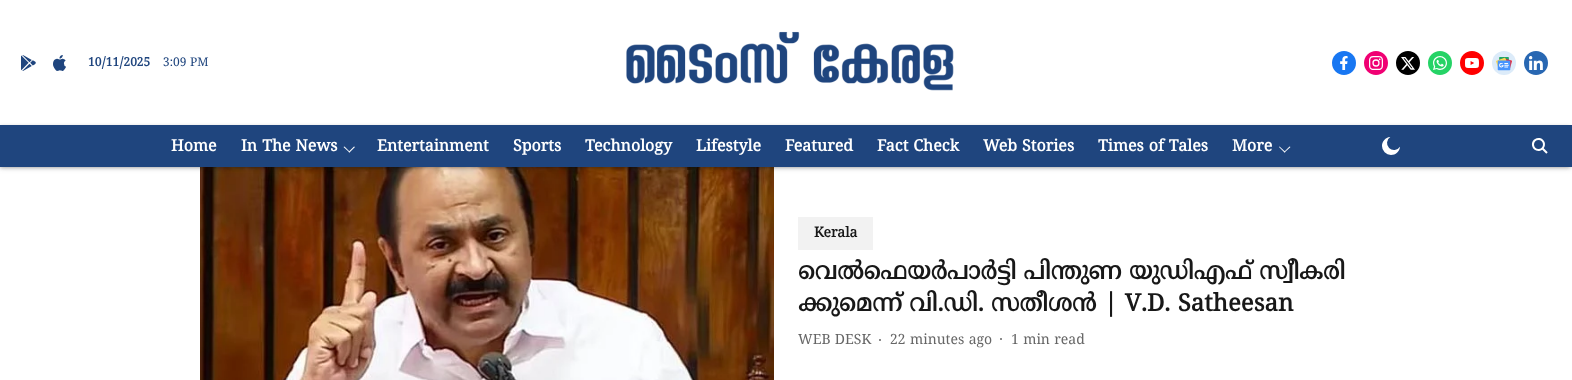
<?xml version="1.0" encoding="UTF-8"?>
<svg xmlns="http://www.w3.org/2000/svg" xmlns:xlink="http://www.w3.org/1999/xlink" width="1572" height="380">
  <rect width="100%" height="100%" fill="#ffffff" />
  <image x="200" y="167" width="574" height="213" xlink:href="image13.png" />
  <rect y="1" width="1572" height="167" fill="#000000" fill-opacity="0.1" filter="blur(3px)" />
  <rect width="1572" height="125" fill="#ffffff" />
  <image x="21" y="55" width="15" height="16" xlink:href="image1.png" />
  <image x="53" y="55" width="13" height="16" xlink:href="image2.png" />
  <image x="626" y="31" width="328" height="60" xlink:href="image3.png" />
  <image x="1332" y="51" width="24" height="24" xlink:href="image4.png" />
  <image x="1364" y="51" width="24" height="24" xlink:href="image5.png" />
  <image x="1396" y="51" width="24" height="24" xlink:href="image6.png" />
  <image x="1428" y="51" width="24" height="24" xlink:href="image7.png" />
  <image x="1460" y="51" width="24" height="24" xlink:href="image8.png" />
  <image x="1492" y="51" width="24" height="24" xlink:href="image9.png" />
  <image x="1524" y="51" width="24" height="24" xlink:href="image10.png" />
  <rect y="127" width="1570" height="40" fill="#000000" fill-opacity="0.39" filter="blur(2px)" />
  <rect y="125" width="1572" height="42" fill="#1f457e" />
  <path d="M 354 146.5 l 1 0.5 l -5.5 5.5 l -1 -0.5 z" fill="#ffffff" />
  <path d="M 344.5 146.5 l 5.5 5.5 l -0.5 0.5 l -6 -5.5 z" fill="#ffffff" />
  <path d="M 1289.5 146.5 l 1 0.5 l -6 5.5 l -0.5 -0.5 z" fill="#ffffff" />
  <path d="M 1279.5 146.5 l 6 5.5 l -1 0.5 l -5.5 -5.5 z" fill="#ffffff" />
  <image x="1382" y="137" width="18" height="18" xlink:href="image11.png" />
  <image x="1531" y="138" width="17" height="16" xlink:href="image12.png" />
  <rect x="798" y="217" width="75" height="33" fill="#f2f2f2" />
  <circle cx="880" cy="340" r="1" fill="#666666" />
  <circle cx="1001" cy="339" r="1" fill="#666666" />
  <text x="88" y="66" style="font-family: Noto Serif Malayalam; font-size: 12px; font-weight: bold; fill: #1f457e">10/11/2025</text>
  <text x="163" y="66" style="font-family: Noto Serif Malayalam; font-size: 12px; fill: #1f457e">3:09 PM</text>
  <text x="171" y="151" style="font-family: Noto Serif Malayalam; font-size: 16px; font-weight: bold; fill: #ffffff">Home</text>
  <text x="241" y="151" style="font-family: Noto Serif Malayalam; font-size: 16px; font-weight: bold; fill: #ffffff">In The News</text>
  <text x="377" y="151" style="font-family: Noto Serif Malayalam; font-size: 16px; font-weight: bold; fill: #ffffff">Entertainment</text>
  <text x="513" y="151" style="font-family: Noto Serif Malayalam; font-size: 16px; font-weight: bold; fill: #ffffff">Sports</text>
  <text x="585" y="151" style="font-family: Noto Serif Malayalam; font-size: 16px; font-weight: bold; fill: #ffffff">Technology</text>
  <text x="696" y="151" style="font-family: Noto Serif Malayalam; font-size: 16px; font-weight: bold; fill: #ffffff">Lifestyle</text>
  <text x="785" y="151" style="font-family: Noto Serif Malayalam; font-size: 16px; font-weight: bold; fill: #ffffff">Featured</text>
  <text x="877" y="151" style="font-family: Noto Serif Malayalam; font-size: 16px; font-weight: bold; fill: #ffffff">Fact Check</text>
  <text x="983" y="151" style="font-family: Noto Serif Malayalam; font-size: 16px; font-weight: bold; fill: #ffffff">Web Stories</text>
  <text x="1098" y="151" style="font-family: Noto Serif Malayalam; font-size: 16px; font-weight: bold; fill: #ffffff">Times of Tales</text>
  <text x="1232" y="151" style="font-family: Noto Serif Malayalam; font-size: 16px; font-weight: bold; fill: #ffffff">More</text>
  <text x="814" y="237" style="font-family: Noto Serif Malayalam; font-size: 14px; font-weight: bold; fill: #181818">Kerala</text>
  <text x="798" y="279" style="font-family: Noto Serif Malayalam; font-size: 24px; font-weight: bold; fill: #181818">വെല്‍ഫെയര്‍പാര്‍ട്ടി പിന്തുണ യുഡിഎഫ് സ്വീകരി</text>
  <text x="798" y="311" style="font-family: Noto Serif Malayalam; font-size: 24px; font-weight: bold; fill: #181818">ക്കുമെന്ന് വി.ഡി. സതീശൻ | V.D. Satheesan</text>
  <text x="798" y="344" style="font-family: Noto Serif Malayalam; font-size: 14px; fill: #666666">WEB DESK</text>
  <text x="890" y="344" style="font-family: Noto Serif Malayalam; font-size: 14px; fill: #666666">22 minutes ago</text>
  <text x="1011" y="344" style="font-family: Noto Serif Malayalam; font-size: 14px; fill: #666666">1 min read</text>
</svg>
